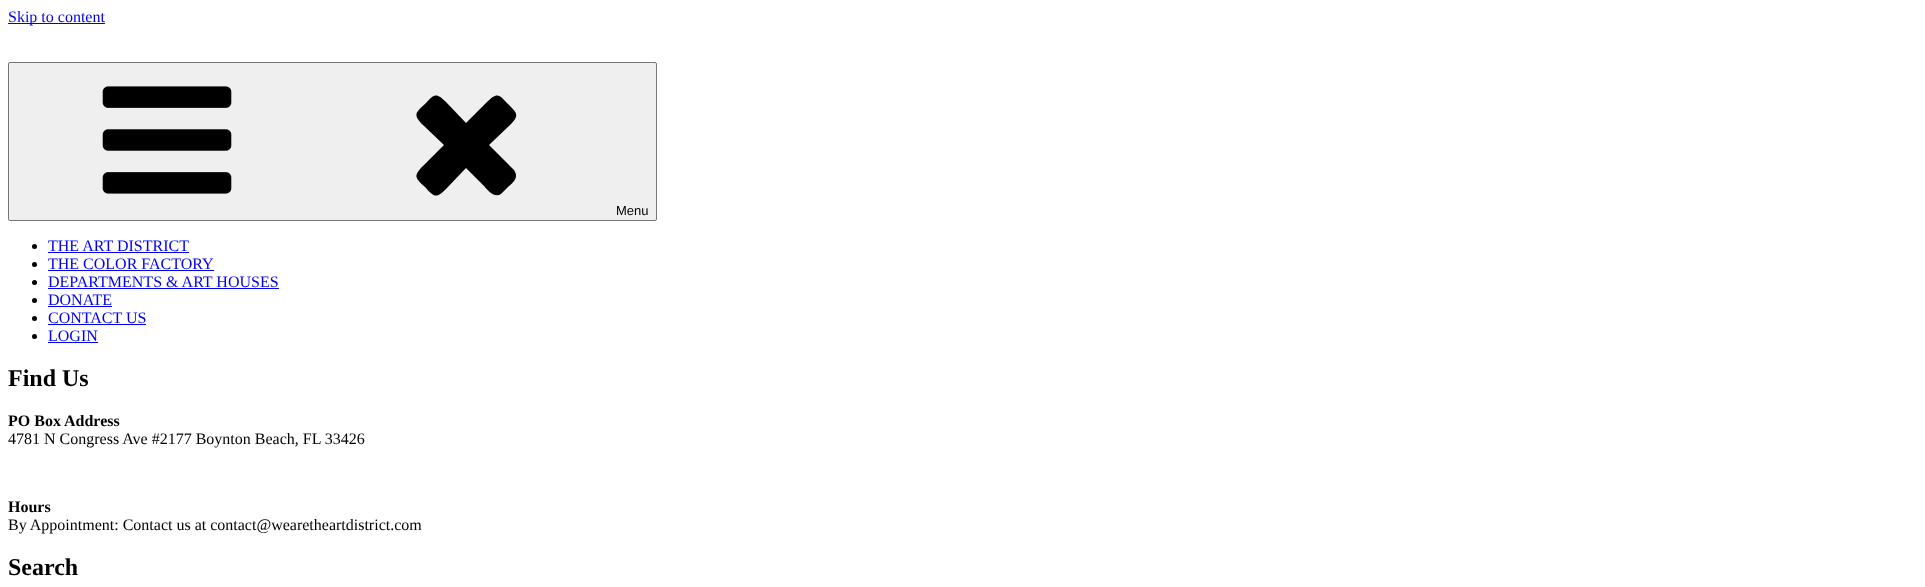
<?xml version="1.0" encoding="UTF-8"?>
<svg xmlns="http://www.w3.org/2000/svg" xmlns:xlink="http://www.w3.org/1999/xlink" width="1925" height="587">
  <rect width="100%" height="100%" fill="#ffffff" />
  <rect x="8" y="23" width="97" height="1" fill="#0000ee" />
  <rect x="8.5" y="62.5" width="648" height="158" rx="1.5" fill="#efefef" stroke="#767676" />
  <image x="102" y="86" width="130" height="108" xlink:href="image1.png" />
  <path d="M 516 176 c 0 5 -6 9 -10 13 l -5 5 c -7 5 -14 -5 -18 -9 l -17 -17 l -20 21 c -10 10 -12 8 -21 -2 c -10 -9 -12 -11 -2 -21 l 21 -21 l -21 -20 c -10 -10 -8 -12 2 -21 c 9 -10 11 -12 21 -2 l 20 21 l 21 -21 c 10 -10 12 -8 21 2 c 9 9 12 11 2 21 l -21 20 l 25 25 c 1 2 2 3 2 6 z" fill="#000000" />
  <circle cx="34.5" cy="246.5" r="2.5" fill="#000000" />
  <rect x="48" y="252" width="141" height="1" fill="#0000ee" />
  <circle cx="34.5" cy="264.5" r="2.5" fill="#000000" />
  <rect x="48" y="270" width="166" height="1" fill="#0000ee" />
  <circle cx="34.5" cy="282.5" r="2.5" fill="#000000" />
  <rect x="48" y="288" width="231" height="1" fill="#0000ee" />
  <circle cx="34.5" cy="300.5" r="2.5" fill="#000000" />
  <rect x="48" y="306" width="64" height="1" fill="#0000ee" />
  <circle cx="34.5" cy="318.5" r="2.5" fill="#000000" />
  <rect x="48" y="324" width="98" height="1" fill="#0000ee" />
  <circle cx="34.5" cy="336.5" r="2.5" fill="#000000" />
  <rect x="48" y="342" width="50" height="1" fill="#0000ee" />
  <text x="8" y="22" style="font-family: Liberation Serif; font-size: 16px; fill: #0000ee">Skip to content</text>
  <text x="616" y="215" style="font-family: Liberation Sans; font-size: 13px; fill: #000000">Menu</text>
  <text x="48" y="251" style="font-family: Liberation Serif; font-size: 16px; fill: #0000ee">THE ART DISTRICT</text>
  <text x="48" y="269" style="font-family: Liberation Serif; font-size: 16px; fill: #0000ee">THE COLOR FACTORY</text>
  <text x="48" y="287" style="font-family: Liberation Serif; font-size: 16px; fill: #0000ee">DEPARTMENTS &amp; ART HOUSES</text>
  <text x="48" y="305" style="font-family: Liberation Serif; font-size: 16px; fill: #0000ee">DONATE</text>
  <text x="48" y="323" style="font-family: Liberation Serif; font-size: 16px; fill: #0000ee">CONTACT US</text>
  <text x="48" y="341" style="font-family: Liberation Serif; font-size: 16px; fill: #0000ee">LOGIN</text>
  <text x="8" y="386" style="font-family: Liberation Serif; font-size: 24px; font-weight: bold; fill: #000000">Find Us</text>
  <text x="8" y="426" style="font-family: Liberation Serif; font-size: 16px; font-weight: bold; fill: #000000">PO Box Address</text>
  <text x="8" y="444" style="font-family: Liberation Serif; font-size: 16px; fill: #000000">4781 N Congress Ave #2177 Boynton Beach, FL 33426</text>
  <text x="8" y="512" style="font-family: Liberation Serif; font-size: 16px; font-weight: bold; fill: #000000">Hours</text>
  <text x="8" y="530" style="font-family: Liberation Serif; font-size: 16px; fill: #000000">By Appointment: Contact us at contact@wearetheartdistrict.com</text>
  <text x="8" y="575" style="font-family: Liberation Serif; font-size: 24px; font-weight: bold; fill: #000000">Search</text>
</svg>
